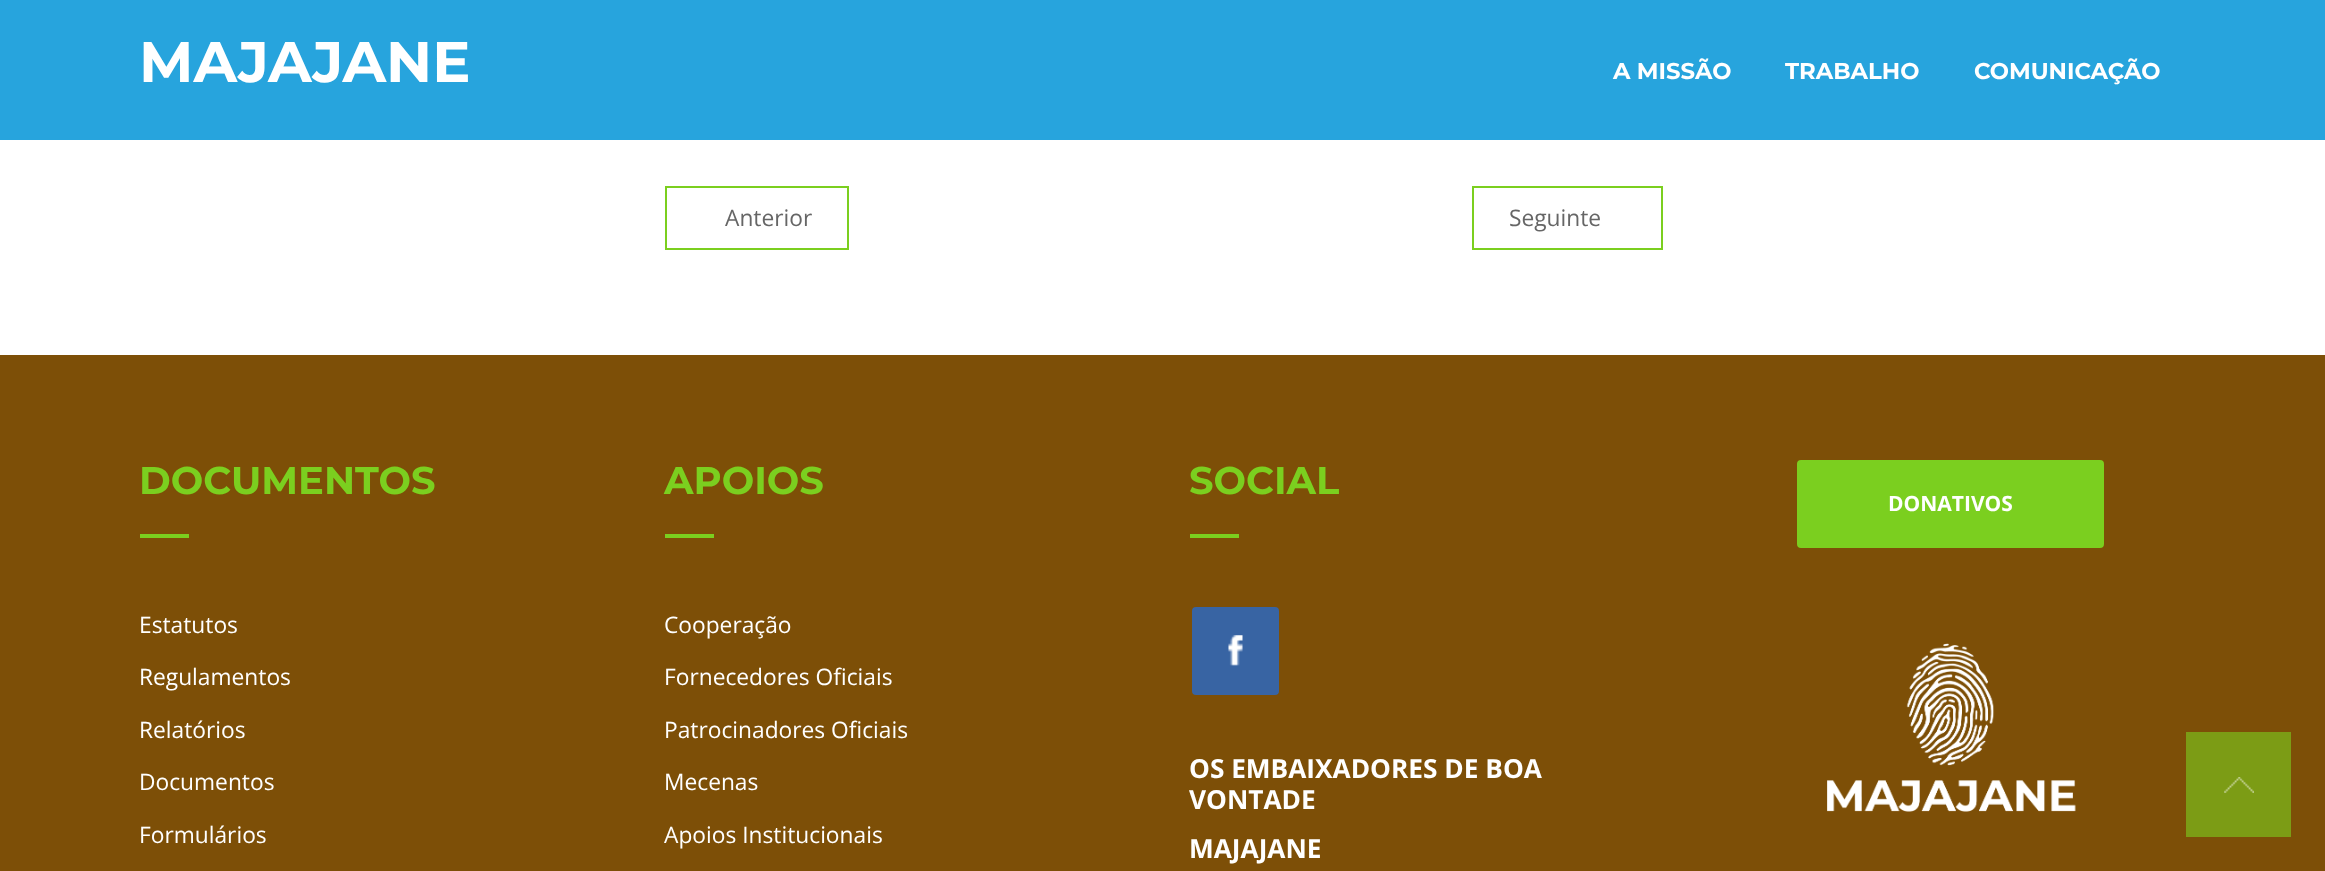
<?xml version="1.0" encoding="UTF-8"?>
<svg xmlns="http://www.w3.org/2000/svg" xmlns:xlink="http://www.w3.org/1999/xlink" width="2325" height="871">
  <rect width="100%" height="100%" fill="#ffffff" />
  <rect width="2325" height="140" fill="#27a4dd" />
  <rect x="666" y="187" width="182" height="62" fill="none" stroke="#7bcf1f" stroke-width="2" />
  <rect x="1473" y="187" width="189" height="62" fill="none" stroke="#7bcf1f" stroke-width="2" />
  <rect y="355" width="2325" height="516" fill="#7d4f07" />
  <rect x="140" y="534" width="49" height="4" fill="#7bcf1f" />
  <rect x="665" y="534" width="49" height="4" fill="#7bcf1f" />
  <rect x="1190" y="534" width="49" height="4" fill="#7bcf1f" />
  <rect x="1192" y="607" width="87" height="88" rx="4" fill="#3864a3" />
  <image x="1228" y="635" width="15" height="31" xlink:href="image1.png" />
  <rect x="1799" y="462" width="303" height="84" rx="2" fill="#7bcf1f" stroke="#7bcf1f" stroke-width="4" />
  <image x="1827" y="643" width="249" height="169" xlink:href="image2.png" />
  <rect x="2186" y="732" width="105" height="105" fill="#7c9c15" />
  <image x="2224" y="777" width="30" height="16" xlink:href="image3.png" />
  <text x="139" y="82" style="font-family: Montserrat; font-size: 57px; font-weight: bold; fill: #ffffff">MAJAJANE</text>
  <text x="1613" y="79" style="font-family: Montserrat; font-size: 22.75px; font-weight: bold; fill: #ffffff">A MISSÃO</text>
  <text x="1785" y="79" style="font-family: Montserrat; font-size: 22.75px; font-weight: bold; fill: #ffffff">TRABALHO</text>
  <text x="1974" y="79" style="font-family: Montserrat; font-size: 22.75px; font-weight: bold; fill: #ffffff">COMUNICAÇÃO</text>
  <text x="725" y="226" style="font-family: Open Sans; font-size: 22.75px; fill: #666666">Anterior</text>
  <text x="1509" y="226" style="font-family: Open Sans; font-size: 22.75px; fill: #666666">Seguinte</text>
  <text x="139" y="494" style="font-family: Montserrat; font-size: 38.5px; font-weight: bold; fill: #7bcf1f">DOCUMENTOS</text>
  <text x="139" y="633" style="font-family: Open Sans; font-size: 22.75px; fill: #ffffff">Estatutos</text>
  <text x="139" y="685" style="font-family: Open Sans; font-size: 22.75px; fill: #ffffff">Regulamentos</text>
  <text x="139" y="738" style="font-family: Open Sans; font-size: 22.75px; fill: #ffffff">Relatórios</text>
  <text x="139" y="790" style="font-family: Open Sans; font-size: 22.75px; fill: #ffffff">Documentos</text>
  <text x="139" y="843" style="font-family: Open Sans; font-size: 22.75px; fill: #ffffff">Formulários</text>
  <text x="664" y="494" style="font-family: Montserrat; font-size: 38.5px; font-weight: bold; fill: #7bcf1f">APOIOS</text>
  <text x="664" y="633" style="font-family: Open Sans; font-size: 22.75px; fill: #ffffff">Cooperação</text>
  <text x="664" y="685" style="font-family: Open Sans; font-size: 22.75px; fill: #ffffff">Fornecedores Oficiais</text>
  <text x="664" y="738" style="font-family: Open Sans; font-size: 22.75px; fill: #ffffff">Patrocinadores Oficiais</text>
  <text x="664" y="790" style="font-family: Open Sans; font-size: 22.75px; fill: #ffffff">Mecenas</text>
  <text x="664" y="843" style="font-family: Open Sans; font-size: 22.75px; fill: #ffffff">Apoios Institucionais</text>
  <text x="1189" y="494" style="font-family: Montserrat; font-size: 38.5px; font-weight: bold; fill: #7bcf1f">SOCIAL</text>
  <text x="1189" y="778" style="font-family: Open Sans; font-size: 26.25px; font-weight: bold; fill: #ffffff">OS EMBAIXADORES DE BOA</text>
  <text x="1189" y="809" style="font-family: Open Sans; font-size: 26.25px; font-weight: bold; fill: #ffffff">VONTADE</text>
  <text x="1189" y="858" style="font-family: Open Sans; font-size: 26.25px; font-weight: bold; fill: #ffffff">MAJAJANE</text>
  <text x="1888" y="511" style="font-family: Open Sans; font-size: 21px; font-weight: bold; fill: #ffffff">DONATIVOS</text>
</svg>
